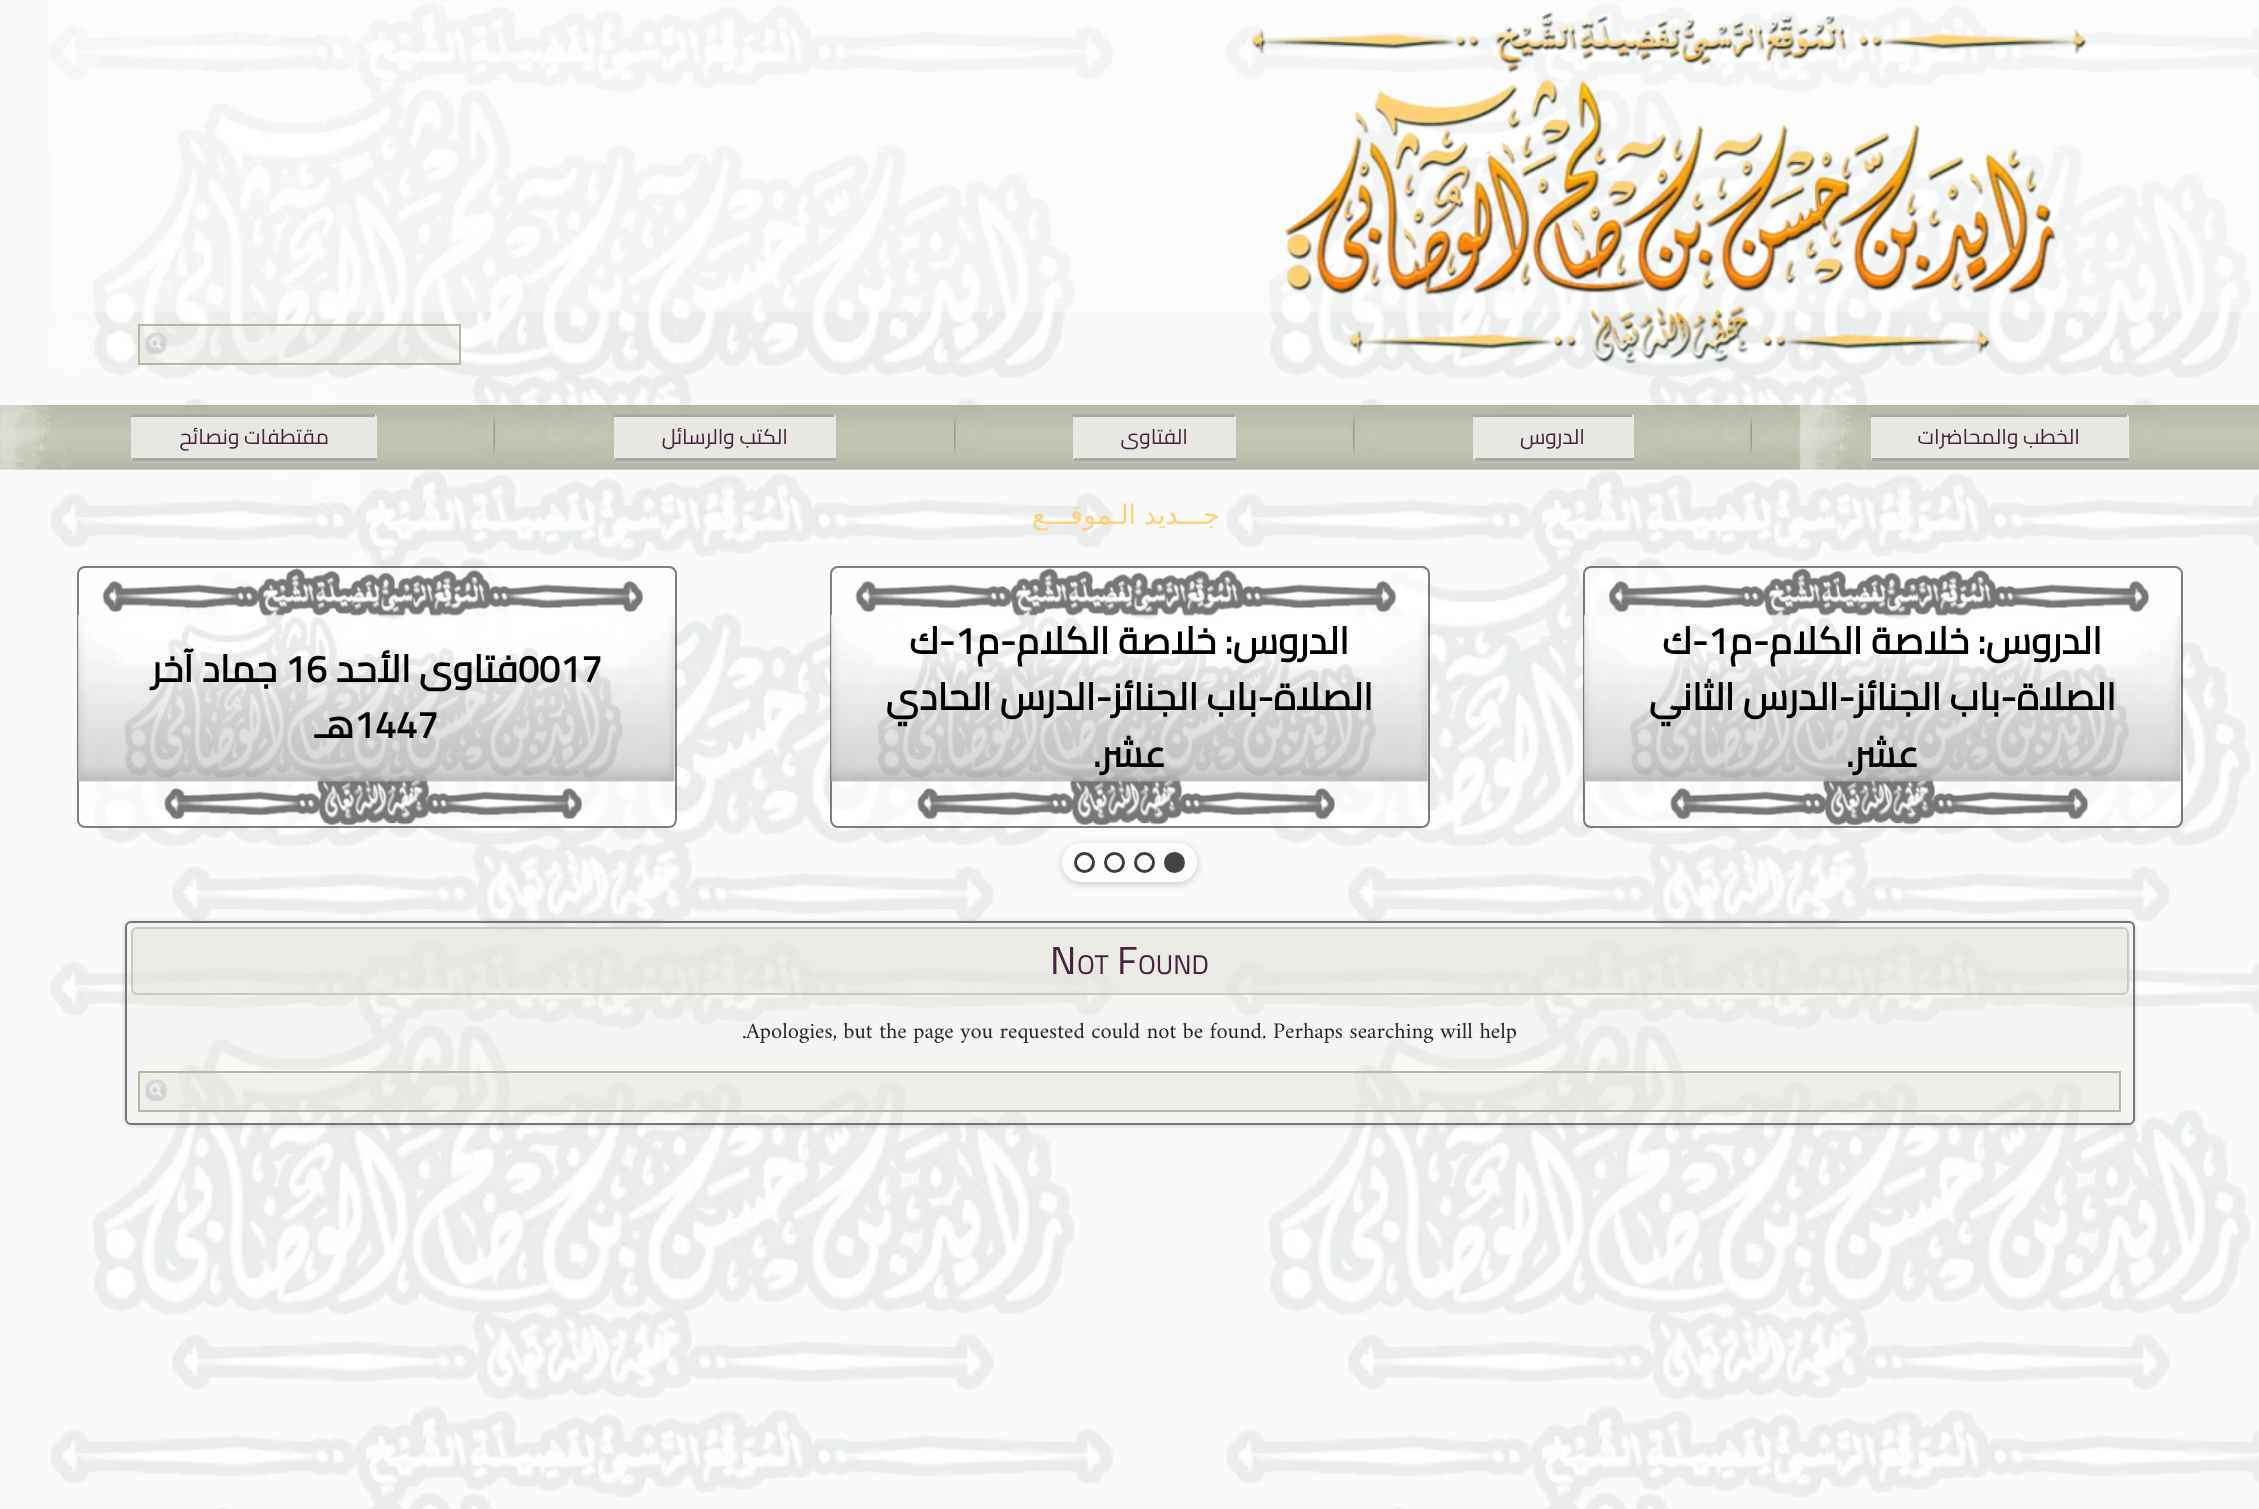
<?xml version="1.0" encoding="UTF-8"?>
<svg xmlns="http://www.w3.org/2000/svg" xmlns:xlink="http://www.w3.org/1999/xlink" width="2259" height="1509">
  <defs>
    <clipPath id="clip1"><path d="M 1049 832 h 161 v 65 h -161 z m 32.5 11 h 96 c 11 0 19.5 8.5 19.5 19.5 c 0 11 -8.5 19.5 -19.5 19.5 h -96 c -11 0 -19.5 -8.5 -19.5 -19.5 c 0 -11 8.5 -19.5 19.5 -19.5 z" clip-rule="evenodd" /></clipPath>
    <clipPath id="clip2"><path d="M 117 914 h 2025 v 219 h -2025 z m 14 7 h 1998 c 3.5 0 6 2.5 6 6 v 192 c 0 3.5 -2.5 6 -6 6 h -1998 c -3.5 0 -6 -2.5 -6 -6 v -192 c 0 -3.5 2.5 -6 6 -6 z" clip-rule="evenodd" /></clipPath>
  </defs>
  <rect width="100%" height="100%" fill="#fafafa" />
  <image x="50" y="2" width="2209" height="1507" xlink:href="image1.png" />
  <rect x="51" y="2" width="2208" height="310" fill="#ffffff" fill-opacity="0.4" />
  <image x="1251" y="11" width="836" height="353" xlink:href="image2.png" />
  <rect x="139" y="325" width="321" height="39" fill="#dfe0d7" fill-opacity="0.3" stroke="#b5b8a3" stroke-width="2" />
  <image x="145" y="333" width="22" height="22" xlink:href="image3.png" />
  <image x="0" y="405" width="2259" height="65" xlink:href="image4.png" />
  <path d="M 1871 414 h 255 c 1.5 0 3 1.5 3 3 v 44 h -255 c -1.5 0 -3 -1.5 -3 -3 z" fill="#e8e8e3" />
  <rect x="1871" y="414" width="256" height="3" fill="#808080" fill-opacity="0.6" />
  <rect x="1872" y="458" width="257" height="3" fill="#808080" fill-opacity="0.6" />
  <image x="1750" y="416" width="2" height="38" xlink:href="image5.png" />
  <path d="M 1473 414 h 158 c 1.5 0 3 1.5 3 3 v 44 h -158 c -1.5 0 -3 -1.5 -3 -3 z" fill="#e8e8e3" />
  <rect x="1473" y="414" width="159" height="3" fill="#808080" fill-opacity="0.6" />
  <rect x="1475" y="458" width="159" height="3" fill="#808080" fill-opacity="0.6" />
  <image x="1353" y="416" width="2" height="38" xlink:href="image6.png" />
  <path d="M 1073 414 h 160 c 1.5 0 3 1.5 3 3 v 44 h -160 c -1.5 0 -3 -1.5 -3 -3 z" fill="#e8e8e3" />
  <rect x="1073" y="414" width="162" height="3" fill="#808080" fill-opacity="0.6" />
  <rect x="1074" y="458" width="162" height="3" fill="#808080" fill-opacity="0.6" />
  <image x="954" y="416" width="2" height="38" xlink:href="image7.png" />
  <path d="M 614 414 h 219 c 1.5 0 3 1.5 3 3 v 44 h -219 c -1.5 0 -3 -1.5 -3 -3 z" fill="#e8e8e3" />
  <rect x="614" y="414" width="220" height="3" fill="#808080" fill-opacity="0.6" />
  <rect x="615" y="458" width="221" height="3" fill="#808080" fill-opacity="0.6" />
  <image x="493" y="416" width="2" height="38" xlink:href="image8.png" />
  <path d="M 131 414 h 243 c 1.5 0 3 1.5 3 3 v 44 h -243 c -1.5 0 -3 -1.5 -3 -3 z" fill="#e8e8e3" />
  <rect x="131" y="414" width="244" height="3" fill="#808080" fill-opacity="0.6" />
  <rect x="132" y="458" width="245" height="3" fill="#808080" fill-opacity="0.6" />
  <rect x="1584" y="567" width="597" height="260" rx="6" fill="#ffffff" fill-opacity="0.67" />
  <rect x="1584" y="567" width="598" height="260" rx="7" fill="none" stroke="#000000" stroke-opacity="0.5" stroke-width="2" />
  <image x="1584" y="568" width="597" height="258" xlink:href="image9.png" />
  <rect x="831" y="567" width="597" height="260" rx="6" fill="#ffffff" fill-opacity="0.67" />
  <rect x="831" y="567" width="598" height="260" rx="7" fill="none" stroke="#000000" stroke-opacity="0.5" stroke-width="2" />
  <image x="831" y="568" width="597" height="258" xlink:href="image10.png" />
  <rect x="78" y="567" width="597" height="260" rx="6" fill="#ffffff" fill-opacity="0.67" />
  <rect x="78" y="567" width="598" height="260" rx="7" fill="none" stroke="#000000" stroke-opacity="0.5" stroke-width="2" />
  <image x="78" y="568" width="597" height="258" xlink:href="image11.png" />
  <g clip-path="url(#clip1)">
    <rect x="1062" y="845" width="135" height="39" rx="19.5" fill="#000000" fill-opacity="0.2" filter="blur(4px)" />
  </g>
  <rect x="1062" y="843" width="135" height="39" rx="19.5" fill="#ffffff" fill-opacity="0.5" />
  <circle cx="1174.5" cy="862.5" r="10.5" fill="#444444" />
  <circle cx="1144.5" cy="862.5" r="9" fill="none" stroke="#3d3d3d" stroke-width="3" />
  <circle cx="1114.5" cy="862.5" r="9" fill="none" stroke="#3d3d3d" stroke-width="3" />
  <circle cx="1084.5" cy="862.5" r="9" fill="none" stroke="#3d3d3d" stroke-width="3" />
  <g clip-path="url(#clip2)">
    <rect x="123" y="920" width="2013" height="207" rx="8" fill="#000000" fill-opacity="0.09" filter="blur(1.5px)" />
  </g>
  <rect x="125" y="921" width="2010" height="204" rx="6" fill="#e8e9e2" fill-opacity="0.3" />
  <rect x="126" y="922" width="2008" height="202" rx="5" fill="none" stroke="#696969" stroke-opacity="0.9" stroke-width="2" />
  <rect x="132" y="928" width="1996" height="66" rx="5" fill="#e1e2da" fill-opacity="0.5" stroke="#c8caba" stroke-width="2" />
  <rect x="139" y="1072" width="1981" height="39" fill="#dfe0d7" fill-opacity="0.3" stroke="#b5b8a3" stroke-width="2" />
  <image x="145" y="1079" width="22" height="23" xlink:href="image12.png" />
  <text x="2080" y="444" style="font-family: Cairo; font-size: 21px; direction: rtl; fill: #4a2140">الخطب والمحاضرات</text>
  <text x="1585" y="444" style="font-family: Cairo; font-size: 21px; direction: rtl; fill: #4a2140">الدروس</text>
  <text x="1188" y="444" style="font-family: Cairo; font-size: 21px; direction: rtl; fill: #4a2140">الفتاوى</text>
  <text x="788" y="444" style="font-family: Cairo; font-size: 21px; direction: rtl; fill: #4a2140">الكتب والرسائل</text>
  <text x="329" y="444" style="font-family: Cairo; font-size: 21px; direction: rtl; fill: #4a2140">مقتطفات ونصائح</text>
  <text x="1220" y="524" word-spacing="-1" style="font-family: DejaVu Sans; font-size: 27px; direction: rtl; fill: #ffd175">جـــديد الـموقـــع</text>
  <text x="2102" y="654" style="font-family: Cairo; font-size: 37.5px; font-weight: bold; direction: rtl; fill: #000000">الدروس: خلاصة الكلام-م</text>
  <text x="1708" y="654" style="font-family: Cairo; font-size: 37.5px; font-weight: bold; fill: #000000">1</text>
  <text x="1708" y="654" style="font-family: Cairo; font-size: 37.5px; font-weight: bold; direction: rtl; fill: #000000">-ك</text>
  <text x="2116" y="710" style="font-family: Cairo; font-size: 37.5px; font-weight: bold; direction: rtl; fill: #000000">الصلاة-باب الجنائز-الدرس الثاني</text>
  <text x="1919" y="767" style="font-family: Cairo; font-size: 37.5px; font-weight: bold; direction: rtl; fill: #000000">عشر.</text>
  <text x="1349" y="654" style="font-family: Cairo; font-size: 37.5px; font-weight: bold; direction: rtl; fill: #000000">الدروس: خلاصة الكلام-م</text>
  <text x="955" y="654" style="font-family: Cairo; font-size: 37.5px; font-weight: bold; fill: #000000">1</text>
  <text x="955" y="654" style="font-family: Cairo; font-size: 37.5px; font-weight: bold; direction: rtl; fill: #000000">-ك</text>
  <text x="1373" y="710" style="font-family: Cairo; font-size: 37.5px; font-weight: bold; direction: rtl; fill: #000000">الصلاة-باب الجنائز-الدرس الحادي</text>
  <text x="1166" y="767" style="font-family: Cairo; font-size: 37.5px; font-weight: bold; direction: rtl; fill: #000000">عشر.</text>
  <text x="518" y="682" style="font-family: Cairo; font-size: 37.5px; font-weight: bold; fill: #000000">0017</text>
  <text x="518" y="682" style="font-family: Cairo; font-size: 37.5px; font-weight: bold; direction: rtl; fill: #000000">فتاوى الأحد</text>
  <text x="285" y="682" style="font-family: Cairo; font-size: 37.5px; font-weight: bold; fill: #000000">16</text>
  <text x="277" y="682" style="font-family: Cairo; font-size: 37.5px; font-weight: bold; direction: rtl; fill: #000000">جماد آخر</text>
  <text x="354" y="738" style="font-family: Cairo; font-size: 37.5px; font-weight: bold; fill: #000000">1447</text>
  <text x="354" y="738" style="font-family: Cairo; font-size: 37.5px; font-weight: bold; direction: rtl; fill: #000000">هـ</text>
  <text x="1138" y="974" style="font-family: Cairo; font-size: 27px; fill: #4a2140">OUND</text>
  <text x="1117" y="974" style="font-family: Cairo; font-size: 39px; fill: #4a2140">F</text>
  <text x="1077" y="974" style="font-family: Cairo; font-size: 27px; fill: #4a2140">OT</text>
  <text x="1050" y="974" style="font-family: Cairo; font-size: 39px; fill: #4a2140">N</text>
  <text x="742" y="1038" style="font-family: Amiri; font-size: 22.5px; fill: #262626">.</text>
  <text x="746" y="1038" style="font-family: Amiri; font-size: 22.5px; fill: #262626">Apologies, but the page you requested could not be found. Perhaps searching will help</text>
</svg>
